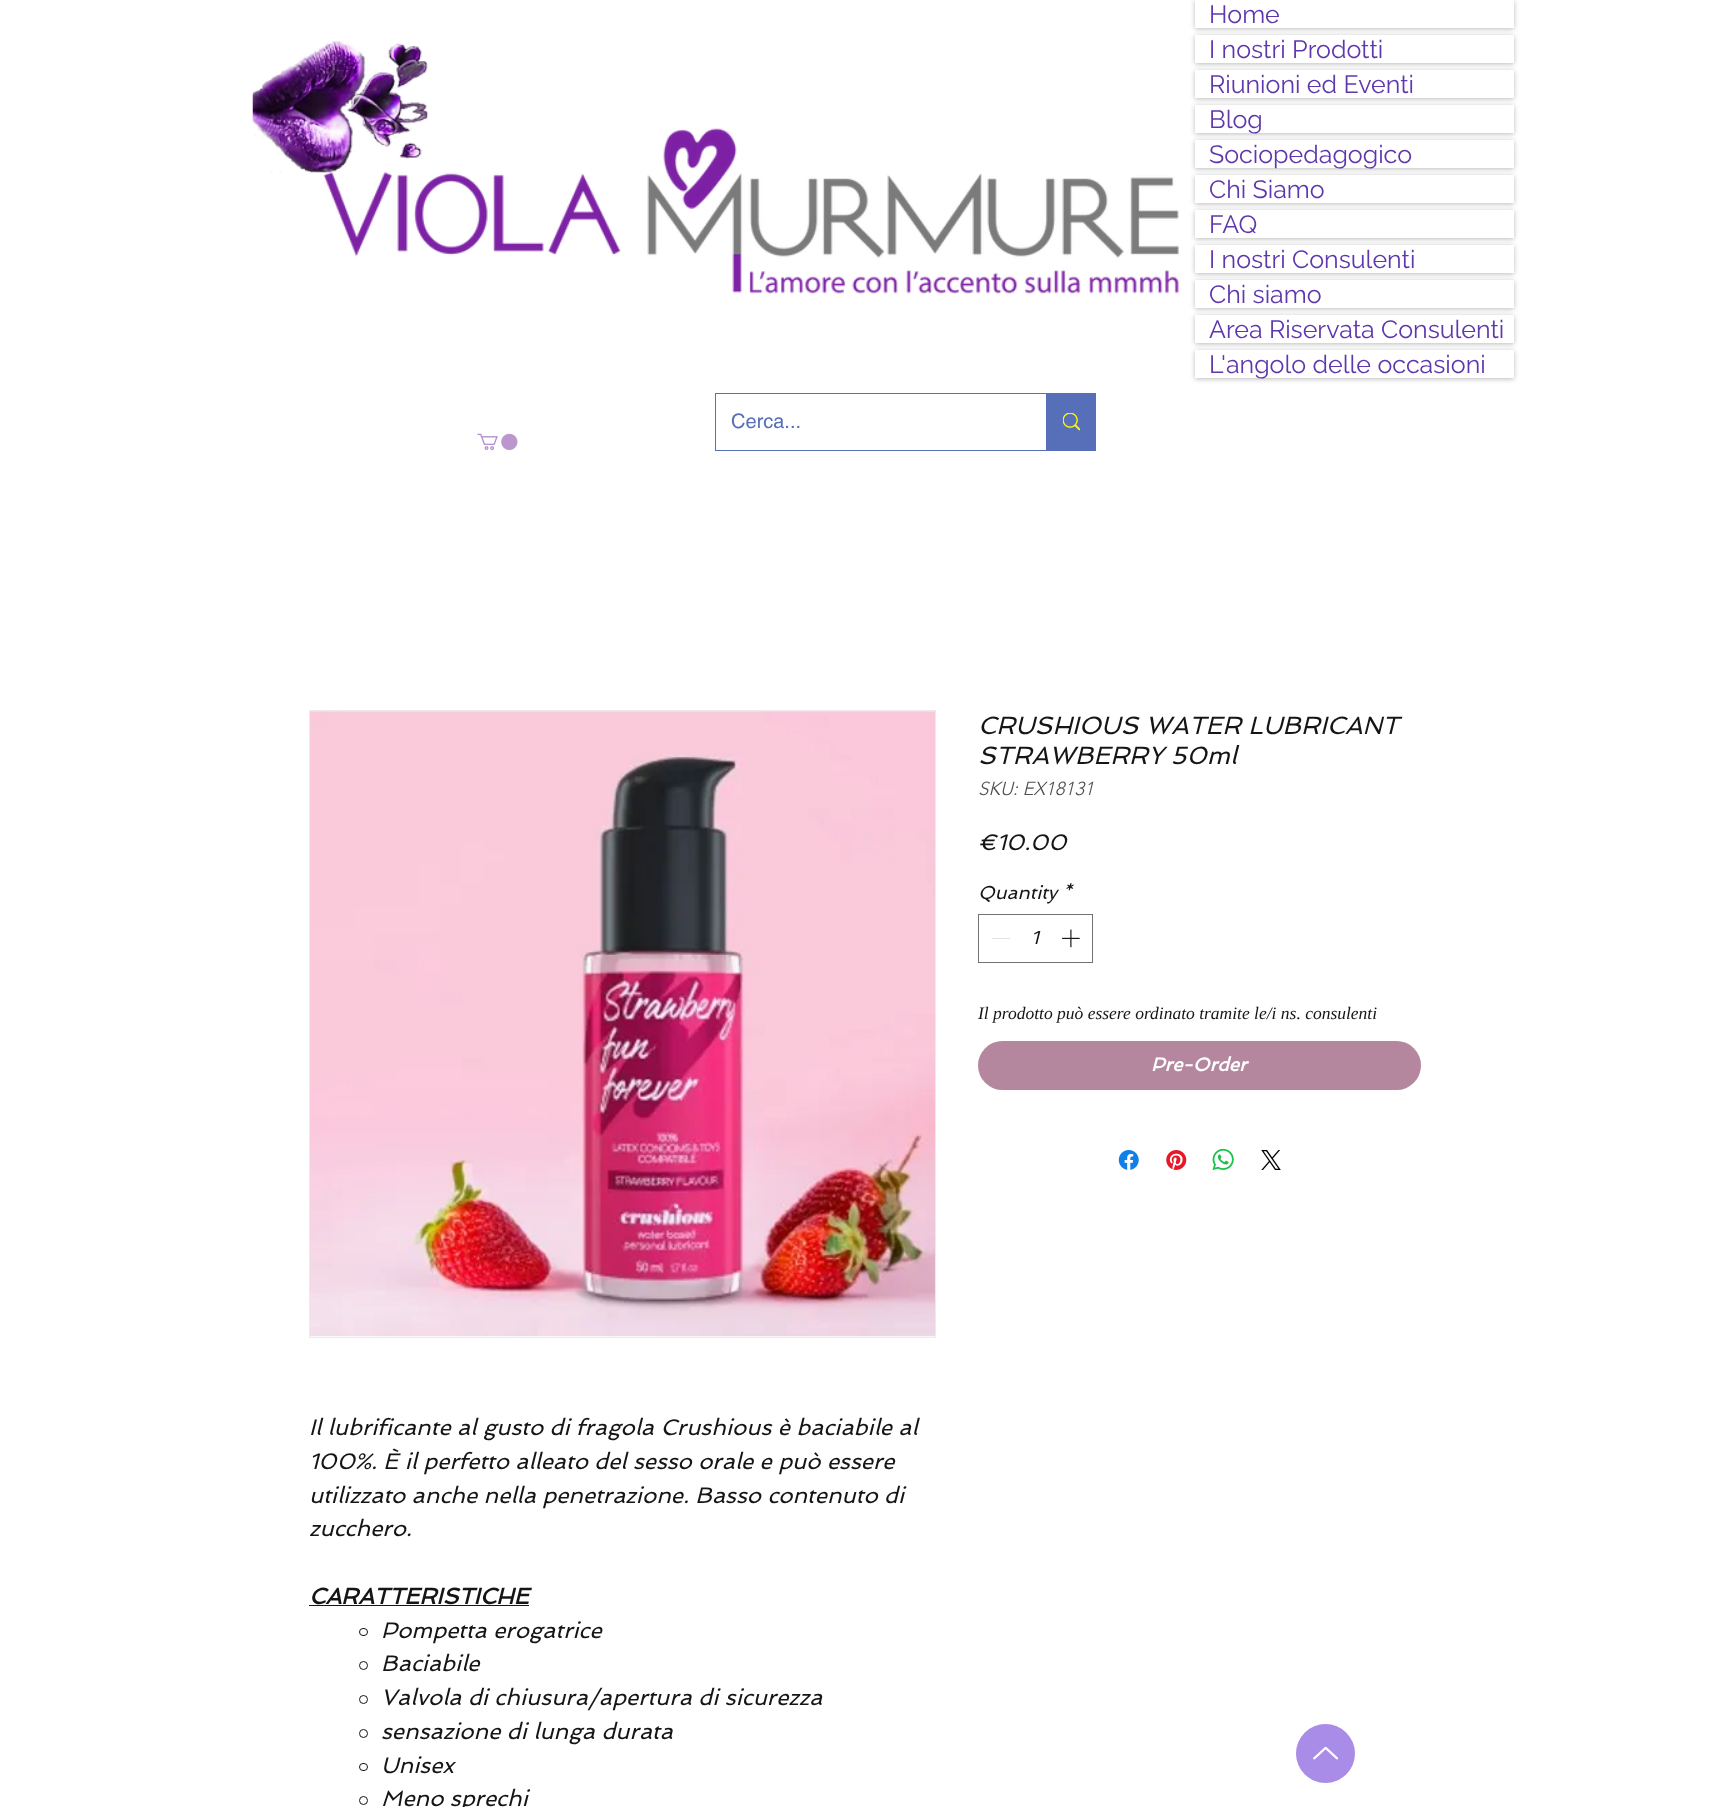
<?xml version="1.0" encoding="UTF-8"?>
<svg xmlns="http://www.w3.org/2000/svg" xmlns:xlink="http://www.w3.org/1999/xlink" width="1729" height="1807">
  <defs>
    <clipPath id="clip1"><path d="M 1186 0 h 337 v 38 h -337 z m 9 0 h 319 v 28 h -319 z" clip-rule="evenodd" /></clipPath>
    <clipPath id="clip2"><path d="M 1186 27 h 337 v 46 h -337 z m 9 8 h 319 v 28 h -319 z" clip-rule="evenodd" /></clipPath>
    <clipPath id="clip3"><path d="M 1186 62 h 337 v 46 h -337 z m 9 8 h 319 v 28 h -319 z" clip-rule="evenodd" /></clipPath>
    <clipPath id="clip4"><path d="M 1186 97 h 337 v 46 h -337 z m 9 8 h 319 v 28 h -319 z" clip-rule="evenodd" /></clipPath>
    <clipPath id="clip5"><path d="M 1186 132 h 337 v 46 h -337 z m 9 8 h 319 v 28 h -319 z" clip-rule="evenodd" /></clipPath>
    <clipPath id="clip6"><path d="M 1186 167 h 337 v 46 h -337 z m 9 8 h 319 v 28 h -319 z" clip-rule="evenodd" /></clipPath>
    <clipPath id="clip7"><path d="M 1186 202 h 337 v 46 h -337 z m 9 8 h 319 v 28 h -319 z" clip-rule="evenodd" /></clipPath>
    <clipPath id="clip8"><path d="M 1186 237 h 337 v 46 h -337 z m 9 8 h 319 v 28 h -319 z" clip-rule="evenodd" /></clipPath>
    <clipPath id="clip9"><path d="M 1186 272 h 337 v 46 h -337 z m 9 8 h 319 v 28 h -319 z" clip-rule="evenodd" /></clipPath>
    <clipPath id="clip10"><path d="M 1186 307 h 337 v 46 h -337 z m 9 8 h 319 v 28 h -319 z" clip-rule="evenodd" /></clipPath>
    <clipPath id="clip11"><path d="M 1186 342 h 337 v 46 h -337 z m 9 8 h 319 v 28 h -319 z" clip-rule="evenodd" /></clipPath>
  </defs>
  <rect width="100%" height="100%" fill="#ffffff" />
  <image x="323" y="128" width="856" height="166" xlink:href="image2.png" />
  <image x="252" y="40" width="176" height="133" xlink:href="image1.png" />
  <g clip-path="url(#clip1)">
    <rect x="1195" y="1" width="319" height="28" fill="#000000" fill-opacity="0.27" filter="blur(2.5px)" />
  </g>
  <rect x="1195" y="1" width="319" height="27" fill="#ffffff" fill-opacity="0.58" />
  <g clip-path="url(#clip2)">
    <rect x="1195" y="36" width="319" height="28" fill="#000000" fill-opacity="0.27" filter="blur(2.5px)" />
  </g>
  <rect x="1195" y="36" width="319" height="27" fill="#ffffff" fill-opacity="0.58" />
  <g clip-path="url(#clip3)">
    <rect x="1195" y="71" width="319" height="28" fill="#000000" fill-opacity="0.27" filter="blur(2.5px)" />
  </g>
  <rect x="1195" y="71" width="319" height="27" fill="#ffffff" fill-opacity="0.58" />
  <g clip-path="url(#clip4)">
    <rect x="1195" y="106" width="319" height="28" fill="#000000" fill-opacity="0.27" filter="blur(2.5px)" />
  </g>
  <rect x="1195" y="106" width="319" height="27" fill="#ffffff" fill-opacity="0.58" />
  <g clip-path="url(#clip5)">
    <rect x="1195" y="141" width="319" height="28" fill="#000000" fill-opacity="0.27" filter="blur(2.5px)" />
  </g>
  <rect x="1195" y="141" width="319" height="27" fill="#ffffff" fill-opacity="0.58" />
  <g clip-path="url(#clip6)">
    <rect x="1195" y="176" width="319" height="28" fill="#000000" fill-opacity="0.27" filter="blur(2.5px)" />
  </g>
  <rect x="1195" y="176" width="319" height="27" fill="#ffffff" fill-opacity="0.58" />
  <g clip-path="url(#clip7)">
    <rect x="1195" y="211" width="319" height="28" fill="#000000" fill-opacity="0.27" filter="blur(2.5px)" />
  </g>
  <rect x="1195" y="211" width="319" height="27" fill="#ffffff" fill-opacity="0.58" />
  <g clip-path="url(#clip8)">
    <rect x="1195" y="246" width="319" height="28" fill="#000000" fill-opacity="0.27" filter="blur(2.5px)" />
  </g>
  <rect x="1195" y="246" width="319" height="27" fill="#ffffff" fill-opacity="0.58" />
  <g clip-path="url(#clip9)">
    <rect x="1195" y="281" width="319" height="28" fill="#000000" fill-opacity="0.27" filter="blur(2.5px)" />
  </g>
  <rect x="1195" y="281" width="319" height="27" fill="#ffffff" fill-opacity="0.58" />
  <g clip-path="url(#clip10)">
    <rect x="1195" y="316" width="319" height="28" fill="#000000" fill-opacity="0.27" filter="blur(2.5px)" />
  </g>
  <rect x="1195" y="316" width="319" height="27" fill="#ffffff" fill-opacity="0.58" />
  <g clip-path="url(#clip11)">
    <rect x="1195" y="351" width="319" height="28" fill="#000000" fill-opacity="0.27" filter="blur(2.5px)" />
  </g>
  <rect x="1195" y="351" width="319" height="27" fill="#ffffff" fill-opacity="0.58" />
  <rect x="715.5" y="393.5" width="380" height="57" fill="none" stroke="#566fb8" />
  <rect x="1046" y="394" width="49" height="56" fill="#566fb8" />
  <image x="1063" y="413" width="17" height="18" xlink:href="image3.png" />
  <image x="477" y="433" width="41" height="17" xlink:href="image4.png" />
  <rect x="978.5" y="914.5" width="114" height="48" fill="none" stroke="#737373" />
  <rect x="992" y="938" width="18" height="1" fill="#e3e3e3" />
  <image x="1062" y="929" width="18" height="19" xlink:href="image5.png" />
  <rect x="978" y="1041" width="443" height="49" rx="24.5" fill="#b4879e" />
  <image x="1118" y="1150" width="21" height="20" xlink:href="image6.png" />
  <image x="1166" y="1150" width="21" height="20" xlink:href="image7.png" />
  <image x="1212" y="1148" width="22" height="23" xlink:href="image8.png" />
  <image x="1261" y="1150" width="20" height="20" xlink:href="image9.png" />
  <rect x="309.5" y="710.5" width="626" height="627" fill="none" stroke="#ebebeb" />
  <image x="310" y="711" width="625" height="626" xlink:href="image10.png" />
  <rect x="309" y="1605" width="220" height="1" fill="#151515" />
  <rect x="359.5" y="1628.5" width="8" height="7" rx="3.5" fill="none" stroke="#151515" />
  <circle cx="363.5" cy="1665.5" r="4" fill="none" stroke="#151515" />
  <circle cx="363.5" cy="1699.5" r="4" fill="none" stroke="#151515" />
  <circle cx="363.5" cy="1733.5" r="4" fill="none" stroke="#151515" />
  <rect x="359.5" y="1763.5" width="8" height="7" rx="3.5" fill="none" stroke="#151515" />
  <circle cx="363.5" cy="1800.5" r="4" fill="none" stroke="#151515" />
  <circle cx="1325.5" cy="1753.5" r="29.5" fill="#a98be8" />
  <image x="1313" y="1746" width="26" height="14" xlink:href="image11.png" />
  <text x="1209" y="23" style="font-family: Raleway; font-size: 25px; fill: #5e37ad">Home</text>
  <text x="1209" y="58" style="font-family: Raleway; font-size: 25px; fill: #5e37ad">I nostri Prodotti</text>
  <text x="1209" y="93" style="font-family: Raleway; font-size: 25px; fill: #5e37ad">Riunioni ed Eventi</text>
  <text x="1209" y="128" style="font-family: Raleway; font-size: 25px; fill: #5e37ad">Blog</text>
  <text x="1209" y="163" style="font-family: Raleway; font-size: 25px; fill: #5e37ad">Sociopedagogico</text>
  <text x="1209" y="198" style="font-family: Raleway; font-size: 25px; fill: #5e37ad">Chi Siamo</text>
  <text x="1209" y="233" style="font-family: Raleway; font-size: 25px; fill: #5e37ad">FAQ</text>
  <text x="1209" y="268" style="font-family: Raleway; font-size: 25px; fill: #5e37ad">I nostri Consulenti</text>
  <text x="1209" y="303" style="font-family: Raleway; font-size: 25px; fill: #5e37ad">Chi siamo</text>
  <text x="1209" y="338" style="font-family: Raleway; font-size: 25px; fill: #5e37ad">Area Riservata Consulenti</text>
  <text x="1209" y="373" style="font-family: Raleway; font-size: 25px; fill: #5e37ad">L'angolo delle occasioni</text>
  <text x="731" y="428" style="font-family: helvetica; font-size: 20px; fill: #566fb8">Cerca...</text>
  <text x="978" y="734" style="font-family: Spinnaker; font-size: 25px; font-style: italic; fill: #151515">CRUSHIOUS WATER LUBRICANT</text>
  <text x="978" y="764" style="font-family: Spinnaker; font-size: 25px; font-style: italic; fill: #151515">STRAWBERRY 50ml</text>
  <text x="978" y="795" style="font-family: 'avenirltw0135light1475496'; font-size: 18.75px; font-weight: 300; font-style: italic; fill: #4f4f4f">SKU: EX18131</text>
  <text x="978" y="850" style="font-family: Spinnaker; font-size: 22.5px; font-style: italic; fill: #151515">€10.00</text>
  <text x="978" y="899" style="font-family: Spinnaker; font-size: 18.75px; font-style: italic; fill: #151515">Quantity</text>
  <text x="1062" y="899" style="font-family: Spinnaker; font-size: 18.75px; font-style: italic; fill: #151515">*</text>
  <text x="1031" y="944" style="font-family: Spinnaker; font-size: 18.75px; font-style: italic; fill: #151515">1</text>
  <text x="978" y="1019" style="font-family: Liberation Serif; font-size: 17.5px; font-style: italic; fill: #151515">Il prodotto può essere ordinato tramite le/i ns. consulenti</text>
  <text x="1151" y="1071" style="font-family: Spinnaker; font-size: 18.75px; font-weight: bold; font-style: italic; fill: #ffffff">Pre-Order</text>
  <text x="309" y="1435" style="font-family: Spinnaker; font-size: 22.5px; font-style: italic; fill: #151515">Il lubrificante al gusto di fragola Crushious è baciabile al</text>
  <text x="309" y="1469" style="font-family: Spinnaker; font-size: 22.5px; font-style: italic; fill: #151515">100%. È il perfetto alleato del sesso orale e può essere</text>
  <text x="309" y="1503" style="font-family: Spinnaker; font-size: 22.5px; font-style: italic; fill: #151515">utilizzato anche nella penetrazione. Basso contenuto di</text>
  <text x="309" y="1536" style="font-family: Spinnaker; font-size: 22.5px; font-style: italic; fill: #151515">zucchero.</text>
  <text x="309" y="1604" style="font-family: Spinnaker; font-size: 22.5px; font-weight: bold; font-style: italic; fill: #151515">CARATTERISTICHE</text>
  <text x="381" y="1638" style="font-family: Spinnaker; font-size: 22.5px; font-style: italic; fill: #151515">Pompetta erogatrice</text>
  <text x="381" y="1671" style="font-family: Spinnaker; font-size: 22.5px; font-style: italic; fill: #151515">Baciabile</text>
  <text x="381" y="1705" style="font-family: Spinnaker; font-size: 22.5px; font-style: italic; fill: #151515">Valvola di chiusura/apertura di sicurezza</text>
  <text x="381" y="1739" style="font-family: Spinnaker; font-size: 22.5px; font-style: italic; fill: #151515">sensazione di lunga durata</text>
  <text x="381" y="1773" style="font-family: Spinnaker; font-size: 22.5px; font-style: italic; fill: #151515">Unisex</text>
  <text x="381" y="1806" style="font-family: Spinnaker; font-size: 22.5px; font-style: italic; fill: #151515">Meno sprechi</text>
</svg>
